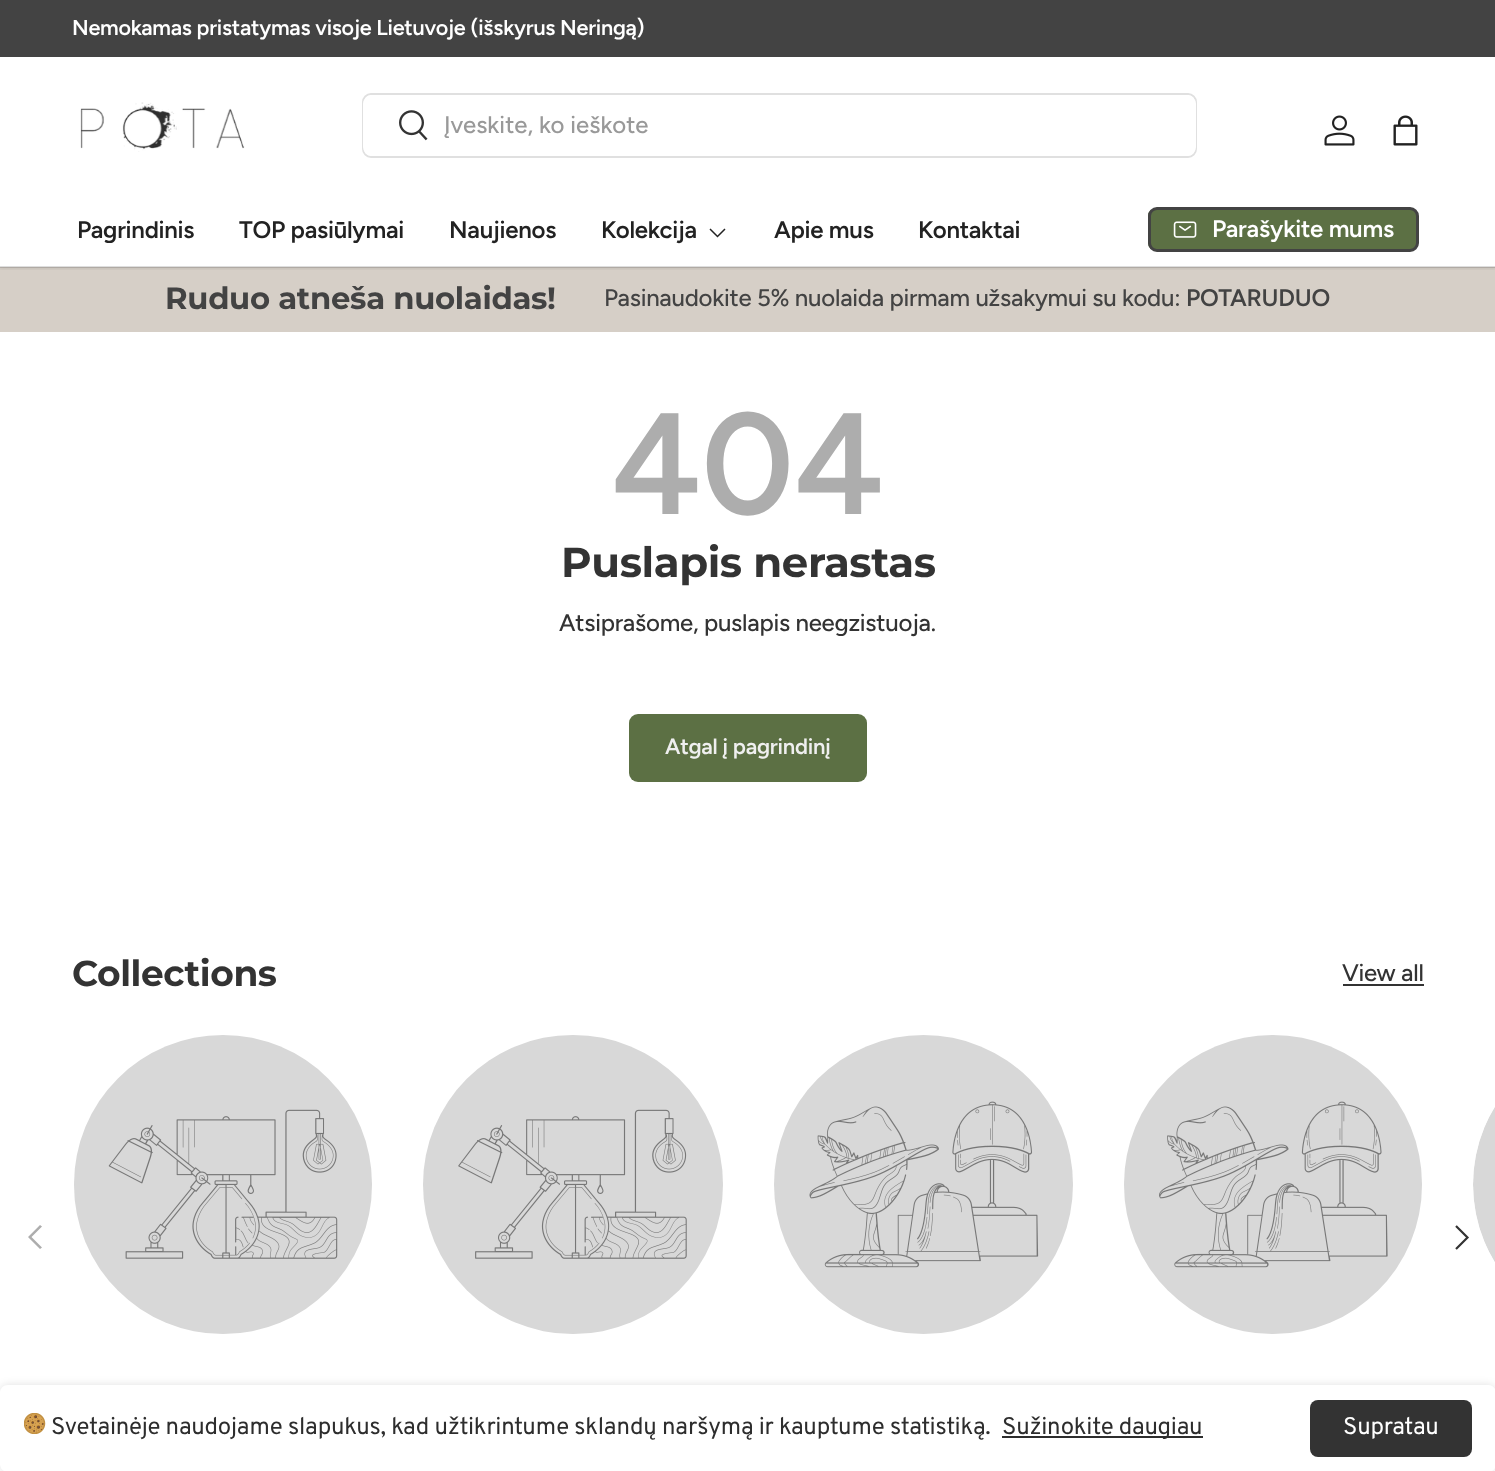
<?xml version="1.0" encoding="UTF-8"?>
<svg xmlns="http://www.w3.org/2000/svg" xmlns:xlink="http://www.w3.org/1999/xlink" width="1495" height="1471">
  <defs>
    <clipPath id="clip1"><rect x="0" y="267" width="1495" height="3" /></clipPath>
    <clipPath id="clip2"><rect x="1148" y="207" width="271" height="45" rx="9" /></clipPath>
    <linearGradient id="g1" gradientUnits="userSpaceOnUse" x1="638" y1="135" x2="1397" y2="324"><stop offset="0.6" stop-color="#7c8e66" /><stop offset="0.6" stop-color="#5c7044" /><stop offset="1" stop-color="#5c7044" /></linearGradient>
    <linearGradient id="g2" gradientUnits="userSpaceOnUse" x1="165" y1="662" x2="854" y2="834"><stop offset="0.6" stop-color="#7a8c64" /><stop offset="0.6" stop-color="#5c7044" /><stop offset="1" stop-color="#5c7044" /></linearGradient>
    <clipPath id="clip3"><rect x="1473" y="1035" width="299" height="299" rx="149.5" /></clipPath>
    <clipPath id="clip4"><path d="M 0 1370 h 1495 v 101 h -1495 z m 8 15 h 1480 c 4.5 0 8 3.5 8 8 v 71 c 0 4.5 -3.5 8 -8 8 h -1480 c -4.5 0 -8 -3.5 -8 -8 v -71 c 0 -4.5 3.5 -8 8 -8 z" clip-rule="evenodd" /></clipPath>
  </defs>
  <rect width="100%" height="100%" fill="#ffffff" />
  <rect y="267" width="1495" height="65" fill="#d6cfc7" />
  <g clip-path="url(#clip1)">
    <rect x="-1" y="56" width="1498" height="213" fill="#000000" fill-opacity="0.08" filter="blur(2px)" />
  </g>
  <rect width="1495" height="57" fill="#434343" />
  <image x="80" y="102" width="165" height="50" xlink:href="image1.png" />
  <rect x="363" y="94" width="833" height="63" rx="8" fill="none" stroke="#e0e0e0" stroke-width="2" />
  <rect x="363" y="95" width="833" height="61" rx="9" fill="#ffffff" />
  <image x="399" y="110" width="29" height="31" xlink:href="image2.png" />
  <image x="1324" y="115" width="31" height="31" xlink:href="image3.png" />
  <image x="1393" y="115" width="25" height="31" xlink:href="image4.png" />
  <path d="M 725 229 l -7.5 7.5 l -7.5 -7.5" fill="none" stroke="#222222" stroke-width="1.5" />
  <g clip-path="url(#clip2)">
    <rect x="1148" y="210" width="268" height="39" fill="url(#g1)" />
  </g>
  <rect x="1149.5" y="208.5" width="268" height="42" rx="7.5" fill="none" stroke="#434343" stroke-width="3" />
  <image x="1173" y="221" width="24" height="17" xlink:href="image5.png" />
  <rect y="266" width="1495" height="2" fill="#222222" fill-opacity="0.15" />
  <rect x="629" y="714" width="238" height="68" rx="9" fill="url(#g2)" />
  <rect x="1343" y="984" width="81" height="2" fill="#333333" />
  <rect x="74" y="1035" width="298" height="299" rx="149" fill="#d8d8d8" />
  <image x="108" y="1109" width="230" height="150" xlink:href="image6.png" />
  <rect x="423" y="1035" width="300" height="299" rx="149.5" fill="#d8d8d8" />
  <image x="458" y="1109" width="229" height="150" xlink:href="image7.png" />
  <circle cx="923.5" cy="1184.5" r="149.5" fill="#d8d8d8" />
  <image x="809" y="1101" width="230" height="167" xlink:href="image8.png" />
  <rect x="1124" y="1035" width="298" height="299" rx="149" fill="#d8d8d8" />
  <image x="1159" y="1101" width="229" height="167" xlink:href="image9.png" />
  <path d="M 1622.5 1035 h -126.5 v 299 h 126.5 c -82.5 0 -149.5 -67 -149.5 -149.5 c 0 -82.5 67 -149.5 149.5 -149.5 z" fill="#fafafa" />
  <g clip-path="url(#clip3)">
    <g clip-path="url(#clip3)">
      <rect x="1473" y="1107" width="22" height="155" fill="#d8d8d8" />
    </g>
  </g>
  <path d="M 28 1237 l 12 -12 l 2 1.5 l -10.5 10.5 l 10.5 10.5 l -2 1.5 z" fill="#adadad" />
  <path d="M 1456 1226 l 11.5 11.5 l -11.5 11.5" fill="none" stroke="#333333" stroke-width="2.2" />
  <g clip-path="url(#clip4)">
    <rect y="1385" width="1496" height="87" rx="8" fill="#000000" fill-opacity="0.12" filter="blur(4.5px)" />
  </g>
  <image x="24" y="1413" width="22" height="21" xlink:href="image10.png" />
  <rect x="1002" y="1436" width="201" height="2" fill="#2d2d2d" />
  <rect x="1310" y="1400" width="162" height="57" rx="8" fill="#333333" />
  <text x="72" y="35" style="font-family: Figtree; font-size: 21.6px; font-weight: 600; letter-spacing: -0.25px; fill: #ffffff">Nemokamas pristatymas visoje Lietuvoje (išskyrus Neringą)</text>
  <text x="444" y="133" style="font-family: Figtree; font-size: 24px; font-weight: 500; fill: #999999">Įveskite, ko ieškote</text>
  <text x="77" y="238" style="font-family: Figtree; font-size: 24px; font-weight: 600; letter-spacing: -0.25px; fill: #222222">Pagrindinis</text>
  <text x="239" y="238" style="font-family: Figtree; font-size: 24px; font-weight: 600; letter-spacing: -0.25px; fill: #222222">TOP pasiūlymai</text>
  <text x="449" y="238" style="font-family: Figtree; font-size: 24px; font-weight: 600; letter-spacing: -0.25px; fill: #222222">Naujienos</text>
  <text x="601" y="238" style="font-family: Figtree; font-size: 24px; font-weight: 600; letter-spacing: -0.25px; fill: #222222">Kolekcija</text>
  <text x="774" y="238" style="font-family: Figtree; font-size: 24px; font-weight: 600; letter-spacing: -0.25px; fill: #222222">Apie mus</text>
  <text x="918" y="238" style="font-family: Figtree; font-size: 24px; font-weight: 600; letter-spacing: -0.25px; fill: #222222">Kontaktai</text>
  <text x="1212" y="237" style="font-family: Figtree; font-size: 24px; font-weight: 600; letter-spacing: -0.25px; fill: #ffffff">Parašykite mums</text>
  <text x="165" y="309" style="font-family: Montserrat; font-size: 30.75px; font-weight: bold; letter-spacing: -0.3px; fill: #434343">Ruduo atneša nuolaidas!</text>
  <text x="604" y="306" style="font-family: Figtree; font-size: 24px; font-weight: 500; letter-spacing: -0.25px; fill: #434343">Pasinaudokite 5% nuolaida pirmam užsakymui su kodu:</text>
  <text x="1186" y="306" style="font-family: Figtree; font-size: 24px; font-weight: 600; letter-spacing: -0.25px; fill: #434343">POTARUDUO</text>
  <text x="611" y="514" style="font-family: Figtree; font-size: 144px; font-weight: 600; letter-spacing: -0.25px; fill: #adadad">404</text>
  <text x="561" y="577" style="font-family: Montserrat; font-size: 41.9px; font-weight: bold; letter-spacing: -0.4px; fill: #333333">Puslapis nerastas</text>
  <text x="559" y="631" style="font-family: Figtree; font-size: 24px; font-weight: 500; letter-spacing: -0.25px; fill: #333333">Atsiprašome, puslapis neegzistuoja.</text>
  <text x="665" y="754" style="font-family: Figtree; font-size: 22px; font-weight: 600; letter-spacing: -0.25px; fill: #efefef">Atgal į pagrindinį</text>
  <text x="72" y="986" style="font-family: Montserrat; font-size: 36px; font-weight: bold; letter-spacing: -0.4px; fill: #333333">Collections</text>
  <text x="1342" y="981" style="font-family: Figtree; font-size: 24px; font-weight: 500; letter-spacing: -0.25px; fill: #333333">View all</text>
  <text x="51" y="1434" style="font-family: Overpass; font-size: 24px; letter-spacing: -0.25px; fill: #2d2d2d">Svetainėje naudojame slapukus, kad užtikrintume sklandų naršymą ir kauptume statistiką.</text>
  <text x="1002" y="1434" style="font-family: Overpass; font-size: 24px; letter-spacing: -0.25px; fill: #2d2d2d">Sužinokite daugiau</text>
  <text x="1343" y="1434" style="font-family: Overpass; font-size: 24px; letter-spacing: -0.25px; fill: #ffffff">Supratau</text>
</svg>
